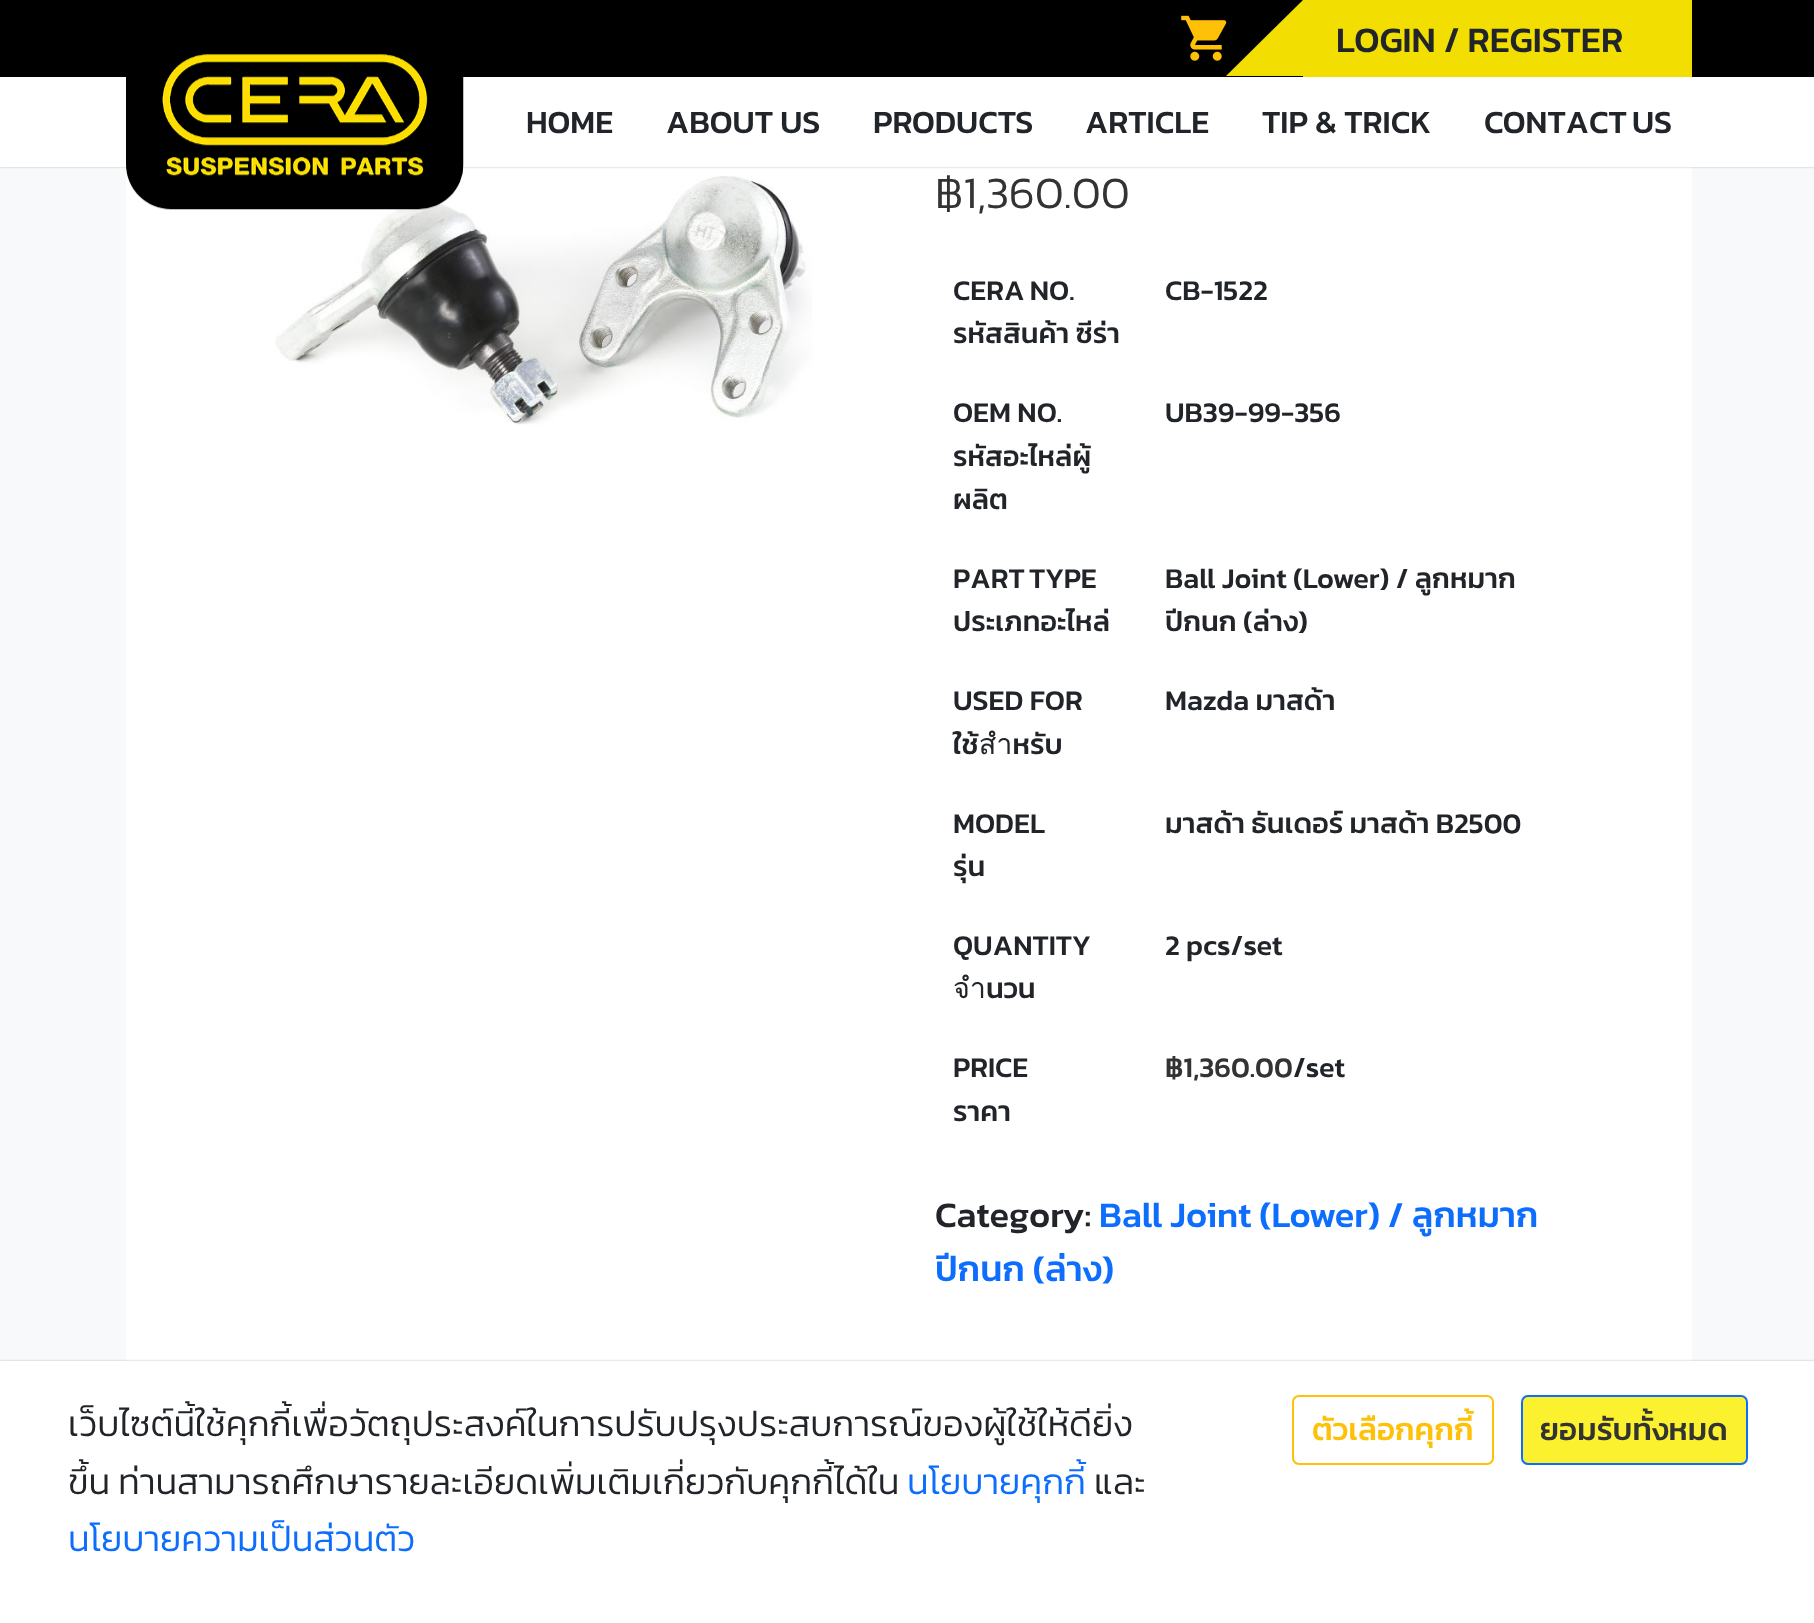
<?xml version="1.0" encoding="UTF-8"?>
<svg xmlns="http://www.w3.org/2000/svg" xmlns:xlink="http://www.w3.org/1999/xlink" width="1814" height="1623">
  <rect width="100%" height="100%" fill="#f8f9fa" />
  <rect width="1814" height="77" fill="#000000" />
  <image x="1181" y="15" width="46" height="46" xlink:href="image1.png" />
  <rect x="126" y="167" width="1566" height="1194" fill="#ffffff" />
  <rect y="77" width="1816" height="90" fill="#000000" fill-opacity="0.25" filter="blur(1px)" />
  <rect x="1303" width="389" height="77" fill="#f2de01" />
  <path d="M 1303 76 h -77 l 77 -76 z" fill="#f2de01" />
  <rect y="77" width="1814" height="90" fill="#ffffff" />
  <image x="275" y="176" width="537" height="249" xlink:href="image3.png" />
  <image x="126" y="54" width="338" height="156" xlink:href="image2.png" />
  <rect y="1361" width="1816" height="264" fill="#000000" fill-opacity="0.25" filter="blur(1px)" />
  <rect y="1361" width="1814" height="262" fill="#ffffff" />
  <rect x="1293" y="1396" width="200" height="68" rx="6" fill="none" stroke="#ffc107" stroke-width="2" />
  <rect x="1522" y="1396" width="225" height="68" rx="6" fill="#fbf12f" stroke="#0d6efd" stroke-width="2" />
  <text x="1336" y="52" style="font-family: Kanit; font-size: 36px; font-weight: 500; fill: #212529">LOGIN / REGISTER</text>
  <text x="526" y="133" style="font-family: Kanit; font-size: 32.5px; font-weight: 500; fill: #212529">HOME</text>
  <text x="666" y="133" style="font-family: Kanit; font-size: 32.5px; font-weight: 500; fill: #212529">ABOUT US</text>
  <text x="873" y="133" style="font-family: Kanit; font-size: 32.5px; font-weight: 500; fill: #212529">PRODUCTS</text>
  <text x="1085" y="133" style="font-family: Kanit; font-size: 32.5px; font-weight: 500; fill: #212529">ARTICLE</text>
  <text x="1262" y="133" style="font-family: Kanit; font-size: 32.5px; font-weight: 500; fill: #212529">TIP &amp; TRICK</text>
  <text x="1484" y="133" word-spacing="-2" style="font-family: Kanit; font-size: 32.5px; font-weight: 500; fill: #212529">CONTACT US</text>
  <text x="935" y="208" style="font-family: Kanit; font-size: 45px; font-weight: 300; fill: #333333">฿1,360.00</text>
  <text x="953" y="300" word-spacing="-1" style="font-family: Kanit; font-size: 28.75px; font-weight: 500; fill: #212529">CERA NO.</text>
  <text x="953" y="343" style="font-family: Kanit; font-size: 28.75px; font-weight: 500; fill: #212529">รหัสสินค้า ซีร่า</text>
  <text x="1165" y="300" style="font-family: Kanit; font-size: 28.75px; font-weight: 500; fill: #212529">CB-1522</text>
  <text x="953" y="422" style="font-family: Kanit; font-size: 28.75px; font-weight: 500; fill: #212529">OEM NO.</text>
  <text x="953" y="466" style="font-family: Kanit; font-size: 28.75px; font-weight: 500; fill: #212529">รหัสอะไหล่ผู้</text>
  <text x="953" y="509" style="font-family: Kanit; font-size: 28.75px; font-weight: 500; fill: #212529">ผลิต</text>
  <text x="1165" y="422" style="font-family: Kanit; font-size: 28.75px; font-weight: 500; fill: #212529">UB39-99-356</text>
  <text x="953" y="588" word-spacing="-2" style="font-family: Kanit; font-size: 28.75px; font-weight: 500; fill: #212529">PART TYPE</text>
  <text x="953" y="631" style="font-family: Kanit; font-size: 28.75px; font-weight: 500; fill: #212529">ประเภทอะไหล่</text>
  <text x="1165" y="588" style="font-family: Kanit; font-size: 28.75px; font-weight: 500; fill: #212529">Ball Joint (Lower) / ลูกหมาก</text>
  <text x="1165" y="631" style="font-family: Kanit; font-size: 28.75px; font-weight: 500; fill: #212529">ปีกนก (ล่าง)</text>
  <text x="953" y="710" style="font-family: Kanit; font-size: 28.75px; font-weight: 500; fill: #212529">USED FOR</text>
  <text x="953" y="754" style="font-family: Kanit; font-size: 28.75px; font-weight: 500; fill: #212529">ใช้สำหรับ</text>
  <text x="1165" y="710" style="font-family: Kanit; font-size: 28.75px; font-weight: 500; fill: #212529">Mazda มาสด้า</text>
  <text x="953" y="833" style="font-family: Kanit; font-size: 28.75px; font-weight: 500; fill: #212529">MODEL</text>
  <text x="953" y="876" style="font-family: Kanit; font-size: 28.75px; font-weight: 500; fill: #212529">รุ่น</text>
  <text x="1165" y="833" style="font-family: Kanit; font-size: 28.75px; font-weight: 500; fill: #212529">มาสด้า ธันเดอร์ มาสด้า B2500</text>
  <text x="953" y="955" style="font-family: Kanit; font-size: 28.75px; font-weight: 500; fill: #212529">QUANTITY</text>
  <text x="953" y="998" style="font-family: Kanit; font-size: 28.75px; font-weight: 500; fill: #212529">จำนวน</text>
  <text x="1165" y="955" style="font-family: Kanit; font-size: 28.75px; font-weight: 500; fill: #212529">2 pcs/set</text>
  <text x="953" y="1077" style="font-family: Kanit; font-size: 28.75px; font-weight: 500; fill: #212529">PRICE</text>
  <text x="953" y="1121" style="font-family: Kanit; font-size: 28.75px; font-weight: 500; fill: #212529">ราคา</text>
  <text x="1165" y="1077" style="font-family: Kanit; font-size: 28.75px; font-weight: 500; fill: #333333">฿1,360.00</text>
  <text x="1293" y="1077" style="font-family: Kanit; font-size: 28.75px; font-weight: 500; fill: #212529">/set</text>
  <text x="935" y="1227" style="font-family: Kanit; font-size: 36px; font-weight: 500; fill: #212529">Category:</text>
  <text x="1099" y="1227" style="font-family: Kanit; font-size: 36px; font-weight: 500; fill: #0d6efd">Ball Joint (Lower) / ลูกหมาก</text>
  <text x="935" y="1281" style="font-family: Kanit; font-size: 36px; font-weight: 500; fill: #0d6efd">ปีกนก (ล่าง)</text>
  <text x="68" y="1436" style="font-family: Kanit; font-size: 36px; font-weight: 300; fill: #212529">เว็บไซต์นี้ใช้คุกกี้เพื่อวัตถุประสงค์ในการปรับปรุงประสบการณ์ของผู้ใช้ให้ดียิ่ง</text>
  <text x="68" y="1494" style="font-family: Kanit; font-size: 36px; font-weight: 300; fill: #212529">ขึ้น ท่านสามารถศึกษารายละเอียดเพิ่มเติมเกี่ยวกับคุกกี้ได้ใน</text>
  <text x="907" y="1494" style="font-family: Kanit; font-size: 36px; font-weight: 300; fill: #0d6efd">นโยบายคุกกี้</text>
  <text x="1094" y="1494" style="font-family: Kanit; font-size: 36px; font-weight: 300; fill: #212529">และ</text>
  <text x="68" y="1551" style="font-family: Kanit; font-size: 36px; font-weight: 300; fill: #0d6efd">นโยบายความเป็นส่วนตัว</text>
  <text x="1312" y="1440" style="font-family: Kanit; font-size: 31.5px; font-weight: 500; fill: #ffc107">ตัวเลือกคุกกี้</text>
  <text x="1540" y="1440" style="font-family: Kanit; font-size: 31.5px; font-weight: 500; fill: #333333">ยอมรับทั้งหมด</text>
</svg>
